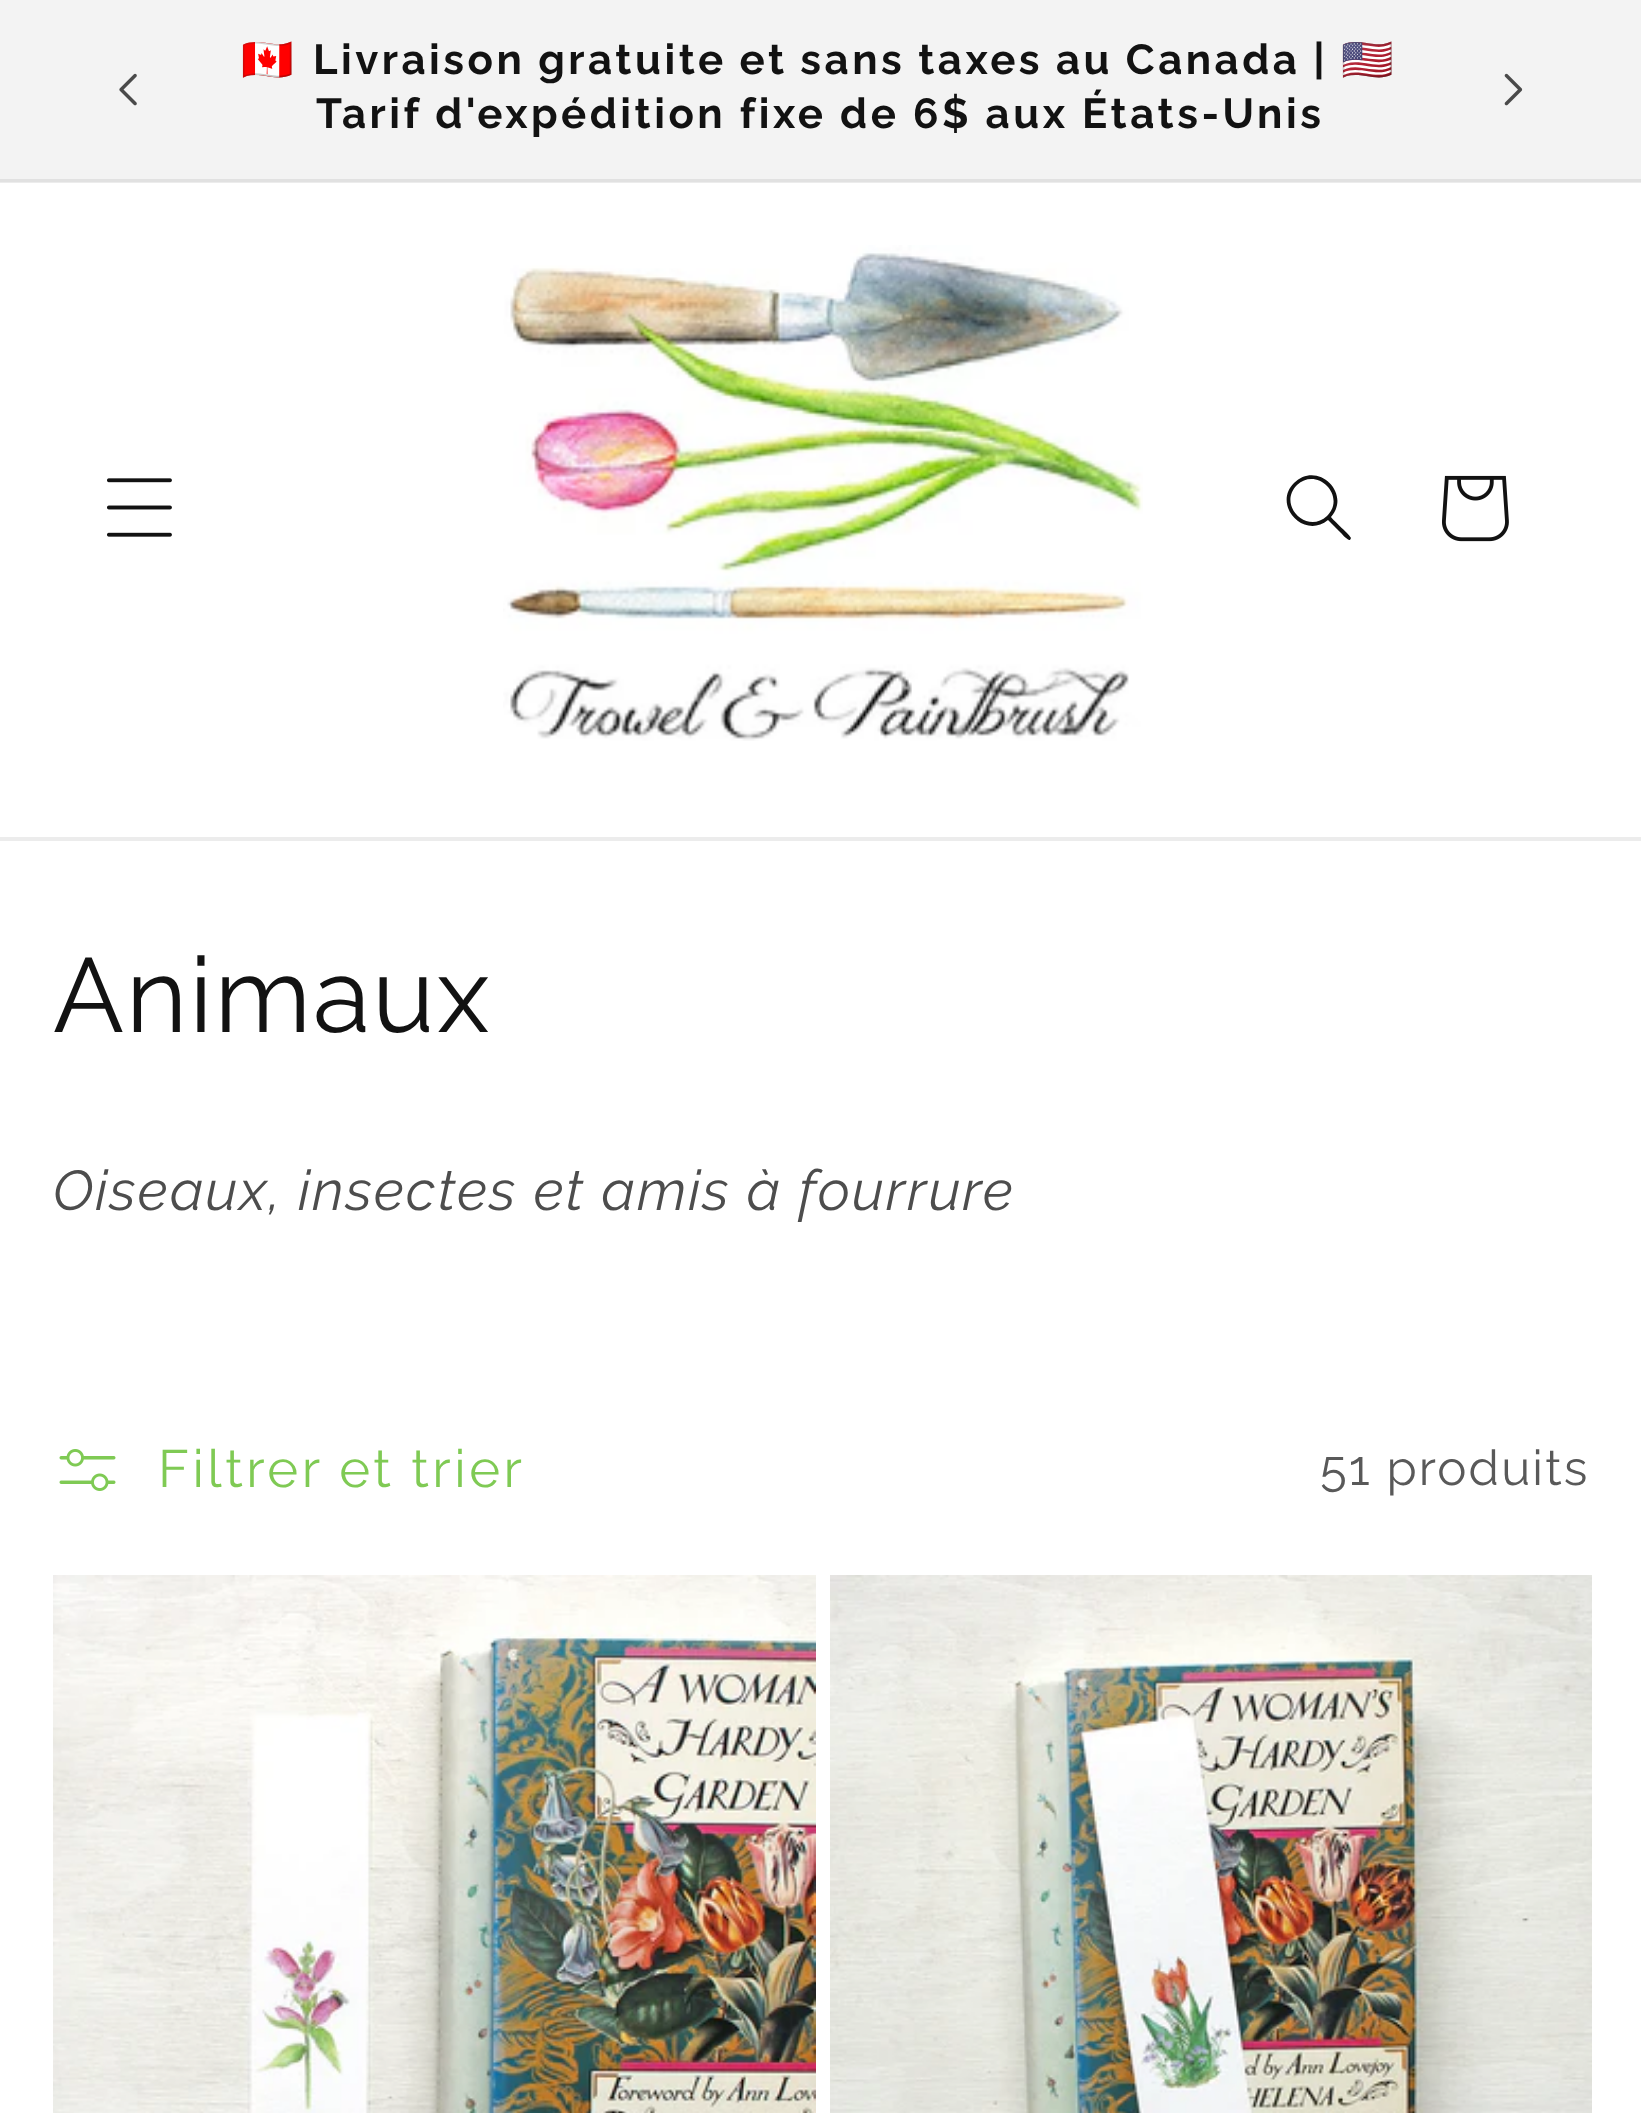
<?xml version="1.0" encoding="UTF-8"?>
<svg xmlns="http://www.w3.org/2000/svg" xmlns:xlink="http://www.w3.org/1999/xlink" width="1641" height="2113">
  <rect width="100%" height="100%" fill="#ffffff" />
  <rect y="182" width="1641" height="1" fill="#ececec" />
  <rect width="1641" height="179" fill="#f3f3f3" />
  <rect y="179" width="1641" height="3" fill="#e1e1e1" />
  <image x="119" y="73" width="18" height="33" xlink:href="image1.png" />
  <image x="1504" y="73" width="19" height="33" xlink:href="image2.png" />
  <rect y="837" width="1641" height="4" fill="#ececec" />
  <image x="107" y="478" width="65" height="59" xlink:href="image3.png" />
  <image x="503" y="245" width="640" height="496" xlink:href="image4.png" />
  <path d="M 1327 516 c -20 19 -50 -11 -30 -31 c 20 -19 50 11 30 31 z m 1 4 c -24 20 -56 -15 -34 -37 c 23 -23 58 10 37 34 c 2 3 20 19 20 21 l -1 2 c -2 1 -8 -6 -9 -7 z" fill="#121212" fill-rule="evenodd" />
  <image x="1442" y="475" width="67" height="67" xlink:href="image5.png" />
  <image x="59" y="1449" width="57" height="42" xlink:href="image6.png" />
  <image x="53" y="1575" width="763" height="538" xlink:href="image7.png" />
  <image x="830" y="1575" width="762" height="538" xlink:href="image8.png" />
  <text x="241" y="74" style="font-family: Noto Color Emoji; font-size: 42px; font-weight: bold; letter-spacing: 3.5px; fill: #121212">🇨🇦</text>
  <text x="313" y="74" word-spacing="-0.75" style="font-family: Raleway; font-size: 42px; font-weight: bold; letter-spacing: 3.5px; fill: #121212">Livraison gratuite et sans taxes au Canada |</text>
  <text x="1341" y="74" style="font-family: Noto Color Emoji; font-size: 42px; font-weight: bold; letter-spacing: 3.5px; fill: #121212">🇺🇸</text>
  <text x="316" y="128" style="font-family: Raleway; font-size: 42px; font-weight: bold; letter-spacing: 3.5px; fill: #121212">Tarif d'expédition fixe de 6$ aux États-Unis</text>
  <text x="53" y="1032" style="font-family: Raleway; font-size: 105px; letter-spacing: 2.1px; fill: #121212">Animaux</text>
  <text x="53" y="1210" style="font-family: Raleway; font-size: 56px; font-style: italic; letter-spacing: 2.1px; fill: #4d4d4d">Oiseaux, insectes et amis à fourrure</text>
  <text x="158" y="1487" style="font-family: Raleway; font-size: 52.5px; letter-spacing: 3.5px; fill: #7fca54">Filtrer et trier</text>
  <text x="1320" y="1485" style="font-family: Raleway; font-size: 49px; letter-spacing: 2.1px; fill: #595959">51 produits</text>
</svg>
